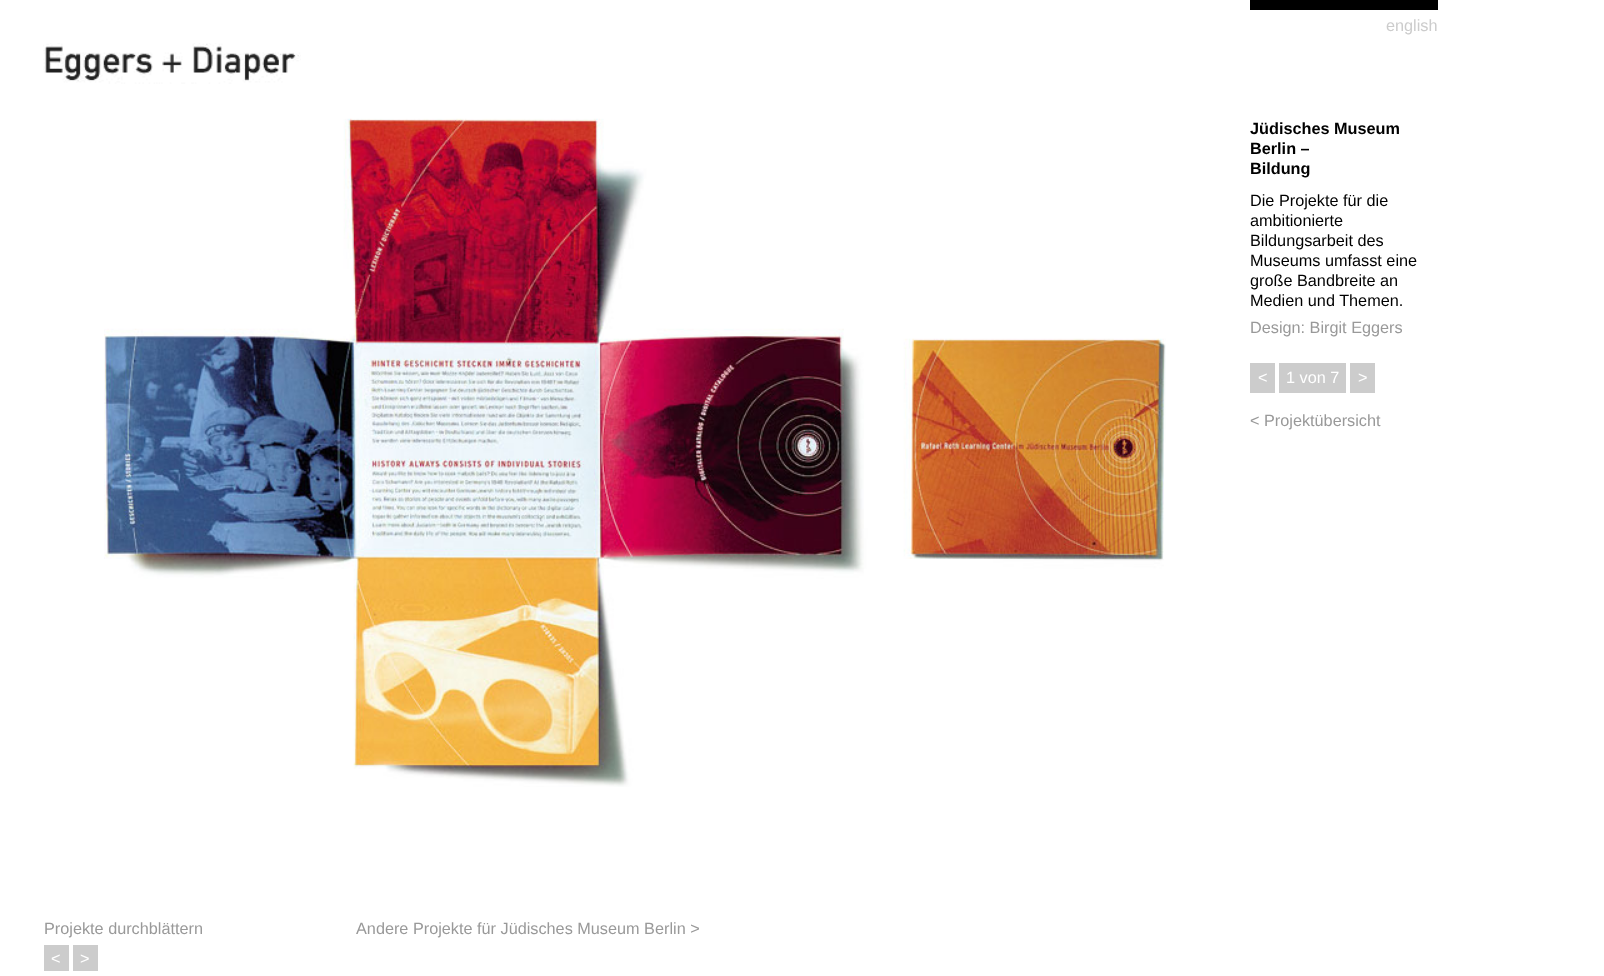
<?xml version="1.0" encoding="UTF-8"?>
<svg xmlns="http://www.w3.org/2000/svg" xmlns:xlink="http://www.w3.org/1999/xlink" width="1604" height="976">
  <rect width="100%" height="100%" fill="#ffffff" />
  <rect x="1250" width="188" height="10" fill="#000000" />
  <image x="43" y="43" width="258" height="41" xlink:href="image1.png" />
  <image x="104" y="118" width="1062" height="669" xlink:href="image2.png" />
  <rect x="1250" y="363" width="25" height="30" fill="#cccccc" />
  <rect x="1279" y="363" width="67" height="30" fill="#cccccc" />
  <rect x="1350" y="363" width="25" height="30" fill="#cccccc" />
  <rect x="44" y="945" width="25" height="26" fill="#cccccc" />
  <rect x="73" y="945" width="25" height="26" fill="#cccccc" />
  <text x="1386" y="31" style="font-family: Liberation Sans; font-size: 16.25px; fill: #cccccc">english</text>
  <text x="1250" y="134" style="font-family: Liberation Sans; font-size: 16.25px; font-weight: bold; fill: #000000">Jüdisches Museum</text>
  <text x="1250" y="154" style="font-family: Liberation Sans; font-size: 16.25px; font-weight: bold; fill: #000000">Berlin –</text>
  <text x="1250" y="174" style="font-family: Liberation Sans; font-size: 16.25px; font-weight: bold; fill: #000000">Bildung</text>
  <text x="1250" y="206" style="font-family: Liberation Sans; font-size: 16.25px; fill: #000000">Die Projekte für die</text>
  <text x="1250" y="226" style="font-family: Liberation Sans; font-size: 16.25px; fill: #000000">ambitionierte</text>
  <text x="1250" y="246" style="font-family: Liberation Sans; font-size: 16.25px; fill: #000000">Bildungsarbeit des</text>
  <text x="1250" y="266" style="font-family: Liberation Sans; font-size: 16.25px; fill: #000000">Museums umfasst eine</text>
  <text x="1250" y="286" style="font-family: Liberation Sans; font-size: 16.25px; fill: #000000">große Bandbreite an</text>
  <text x="1250" y="306" style="font-family: Liberation Sans; font-size: 16.25px; fill: #000000">Medien und Themen.</text>
  <text x="1250" y="333" style="font-family: Liberation Sans; font-size: 16.25px; fill: #999999">Design: Birgit Eggers</text>
  <text x="1258" y="383" style="font-family: Liberation Sans; font-size: 16.25px; fill: #ffffff">&lt;</text>
  <text x="1286" y="383" style="font-family: Liberation Sans; font-size: 16.25px; fill: #ffffff">1 von 7</text>
  <text x="1358" y="383" style="font-family: Liberation Sans; font-size: 16.25px; fill: #ffffff">&gt;</text>
  <text x="1250" y="426" style="font-family: Liberation Sans; font-size: 16.25px; fill: #999999">&lt; Projektübersicht</text>
  <text x="44" y="934" style="font-family: Liberation Sans; font-size: 16.25px; fill: #999999">Projekte durchblättern</text>
  <text x="51" y="964" style="font-family: Liberation Sans; font-size: 16.25px; fill: #ffffff">&lt;</text>
  <text x="80" y="964" style="font-family: Liberation Sans; font-size: 16.25px; fill: #ffffff">&gt;</text>
  <text x="356" y="934" style="font-family: Liberation Sans; font-size: 16.25px; fill: #999999">Andere Projekte für Jüdisches Museum Berlin &gt;</text>
</svg>
